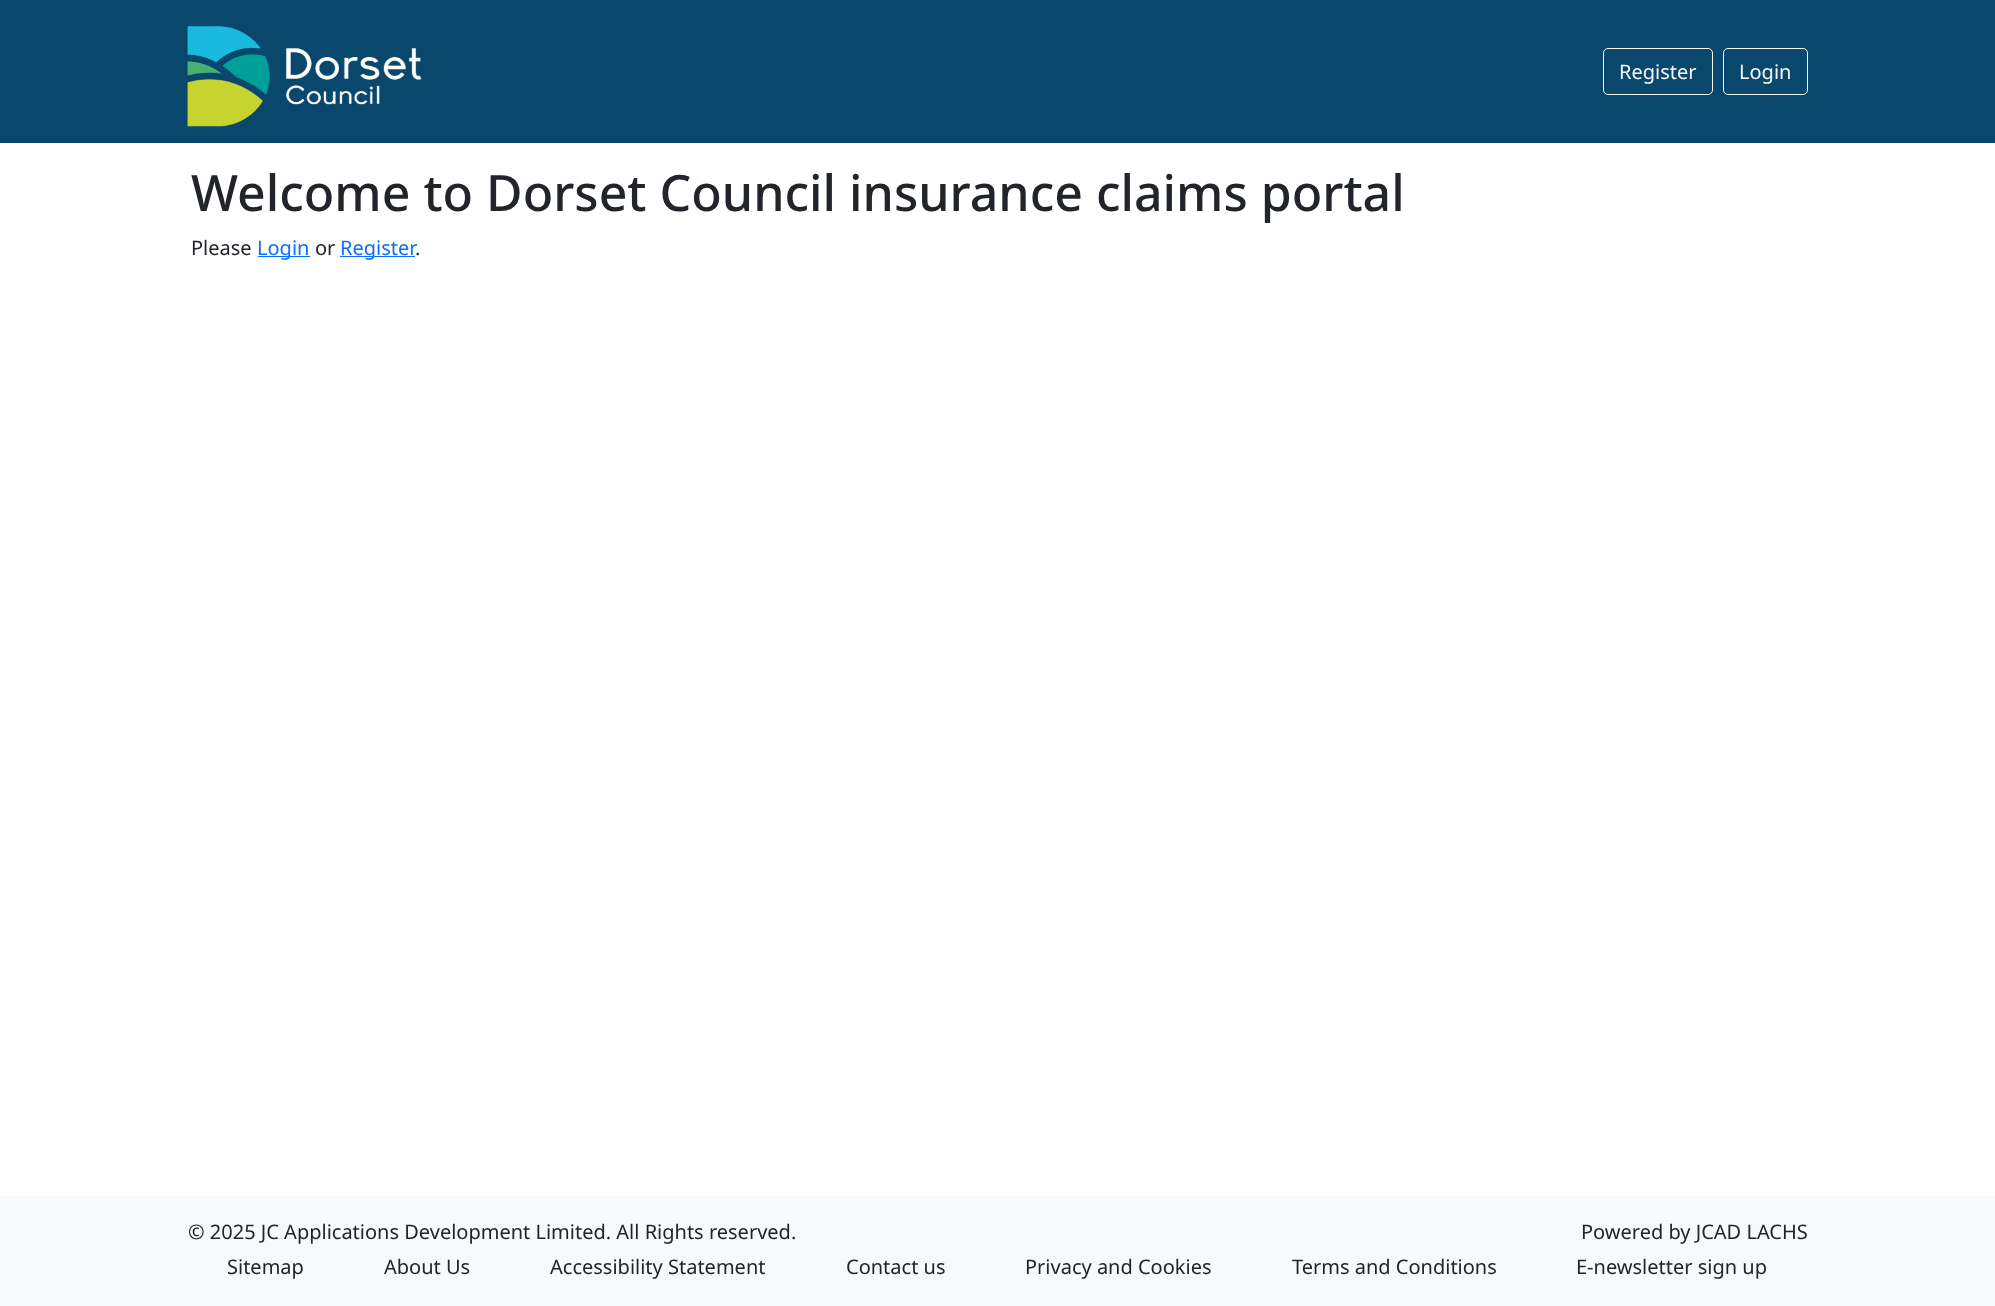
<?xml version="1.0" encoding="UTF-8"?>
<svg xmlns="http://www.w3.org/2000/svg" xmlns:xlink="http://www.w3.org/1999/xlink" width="1995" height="1306">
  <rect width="100%" height="100%" fill="#ffffff" />
  <rect width="1995" height="143" fill="#09476d" />
  <image x="187" y="26" width="235" height="101" xlink:href="image1.png" />
  <rect x="1603.5" y="48.5" width="109" height="46" rx="4.5" fill="none" stroke="#f8f9fa" />
  <rect x="1723.5" y="48.5" width="84" height="46" rx="4.5" fill="none" stroke="#f8f9fa" />
  <rect x="258" y="256" width="52" height="1" fill="#0d6efd" />
  <rect x="340" y="256" width="75" height="1" fill="#0d6efd" />
  <rect y="1196" width="1995" height="110" fill="#f8f9fa" />
  <text x="1619" y="79" style="font-family: Noto Sans; font-size: 20px; fill: #f8f9fa">Register</text>
  <text x="1739" y="79" style="font-family: Noto Sans; font-size: 20px; fill: #f8f9fa">Login</text>
  <text x="191" y="211" style="font-family: Noto Sans; font-size: 50px; font-weight: 500; fill: #212529">Welcome to Dorset Council insurance claims portal</text>
  <text x="191" y="255" style="font-family: Noto Sans; font-size: 20px; fill: #212529">Please</text>
  <text x="257" y="255" style="font-family: Noto Sans; font-size: 20px; fill: #0d6efd">Login</text>
  <text x="315" y="255" style="font-family: Noto Sans; font-size: 20px; fill: #212529">or</text>
  <text x="340" y="255" style="font-family: Noto Sans; font-size: 20px; fill: #0d6efd">Register</text>
  <text x="415" y="255" style="font-family: Noto Sans; font-size: 20px; fill: #212529">.</text>
  <text x="188" y="1239" style="font-family: Noto Sans; font-size: 20px; fill: #212529">© 2025 JC Applications Development Limited. All Rights reserved.</text>
  <text x="1581" y="1239" style="font-family: Noto Sans; font-size: 20px; fill: #212529">Powered by JCAD LACHS</text>
  <text x="227" y="1274" style="font-family: Noto Sans; font-size: 20px; fill: #212529">Sitemap</text>
  <text x="384" y="1274" style="font-family: Noto Sans; font-size: 20px; fill: #212529">About Us</text>
  <text x="550" y="1274" style="font-family: Noto Sans; font-size: 20px; fill: #212529">Accessibility Statement</text>
  <text x="846" y="1274" style="font-family: Noto Sans; font-size: 20px; fill: #212529">Contact us</text>
  <text x="1025" y="1274" style="font-family: Noto Sans; font-size: 20px; fill: #212529">Privacy and Cookies</text>
  <text x="1292" y="1274" style="font-family: Noto Sans; font-size: 20px; fill: #212529">Terms and Conditions</text>
  <text x="1576" y="1274" style="font-family: Noto Sans; font-size: 20px; fill: #212529">E-newsletter sign up</text>
</svg>
